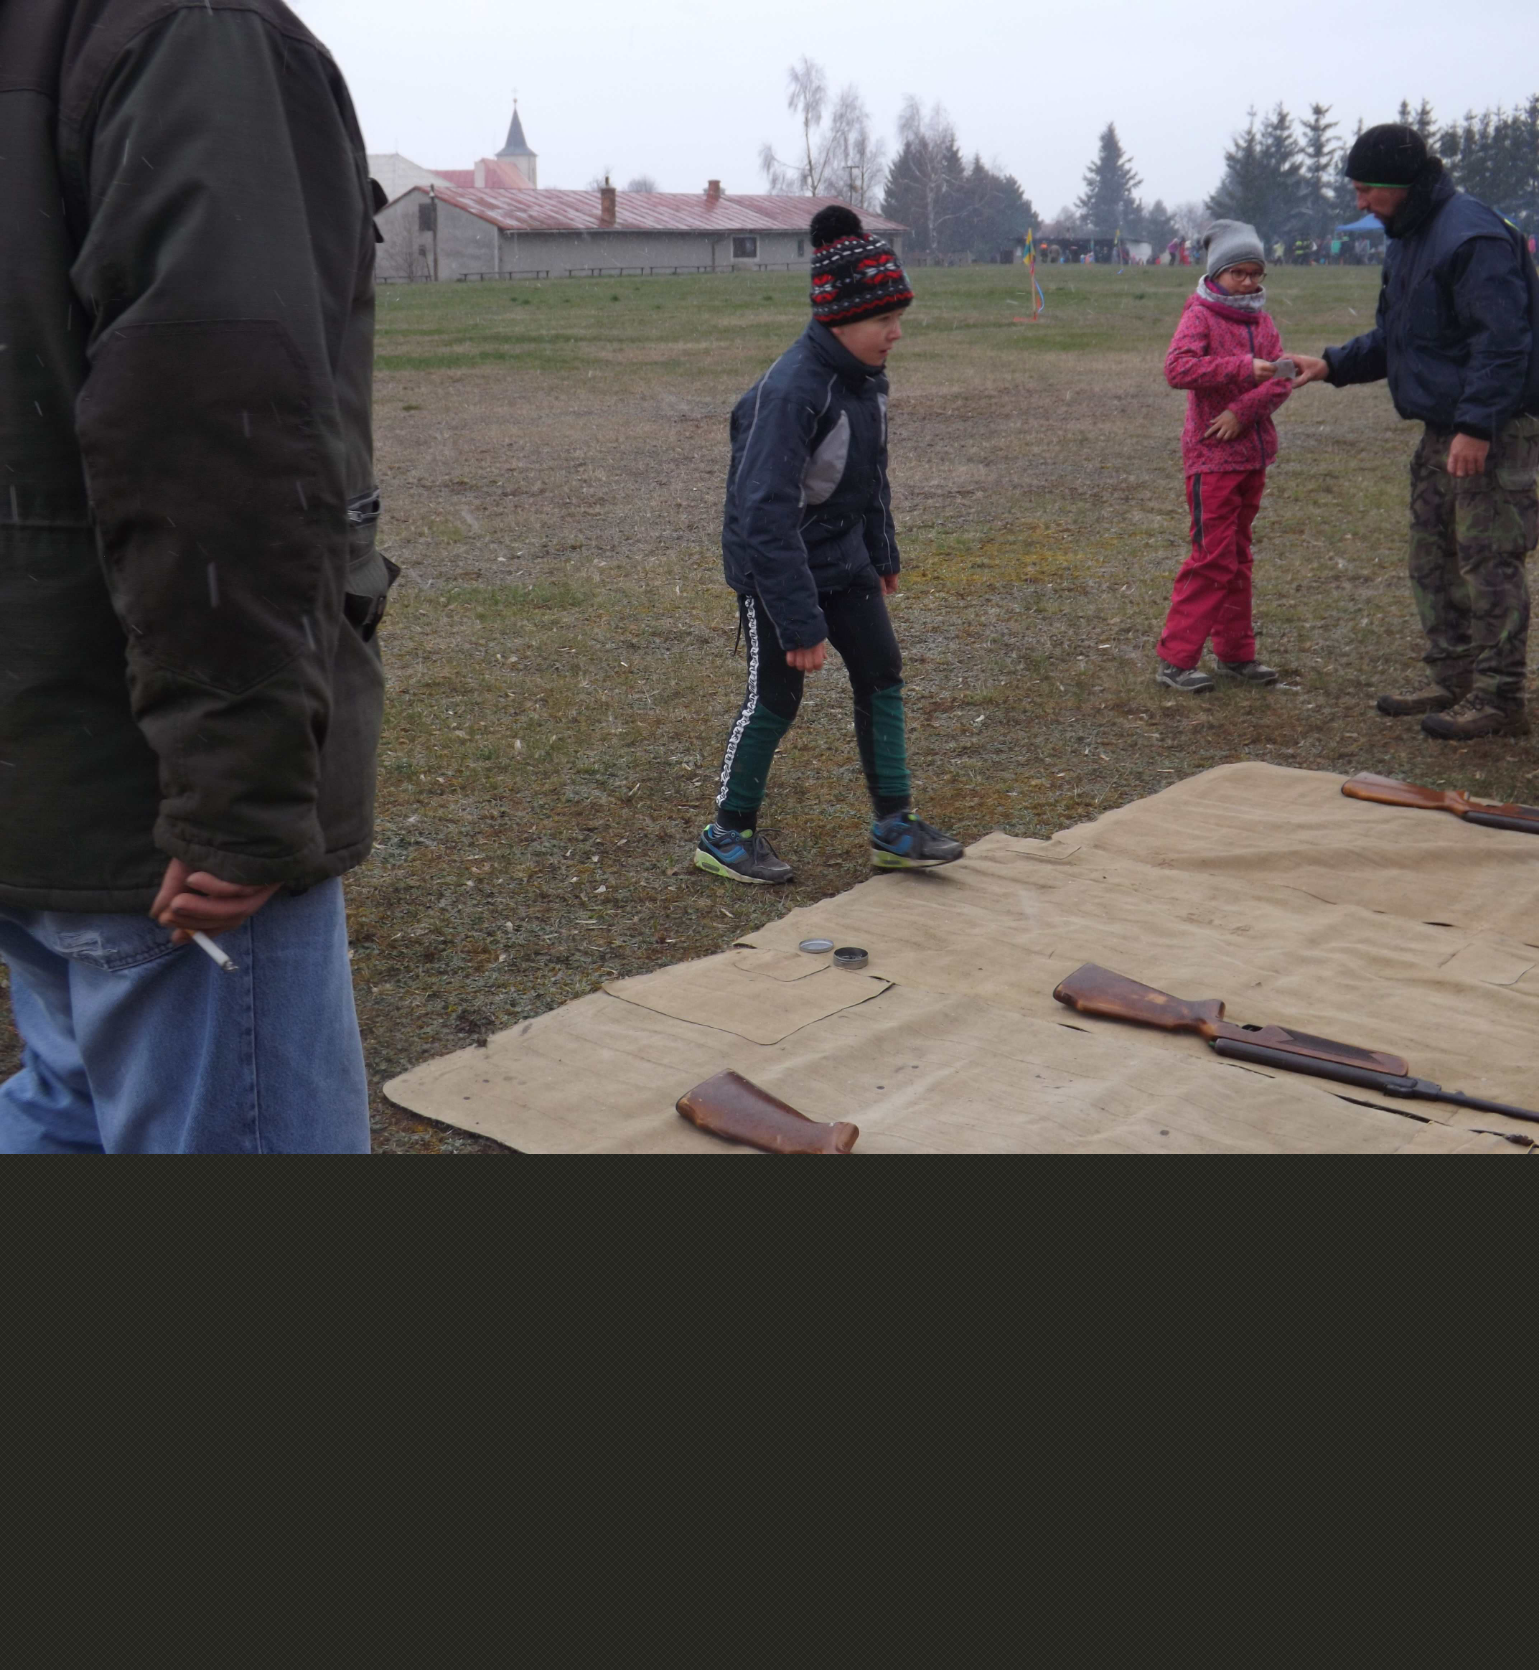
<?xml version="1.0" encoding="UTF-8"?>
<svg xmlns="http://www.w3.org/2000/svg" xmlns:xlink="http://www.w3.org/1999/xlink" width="1539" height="1670">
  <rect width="100%" height="100%" fill="#25251f" />
  <image x="0" y="1154" width="1539" height="516" xlink:href="image1.png" />
  <image x="0" y="0" width="1539" height="1154" xlink:href="image2.png" />
</svg>
